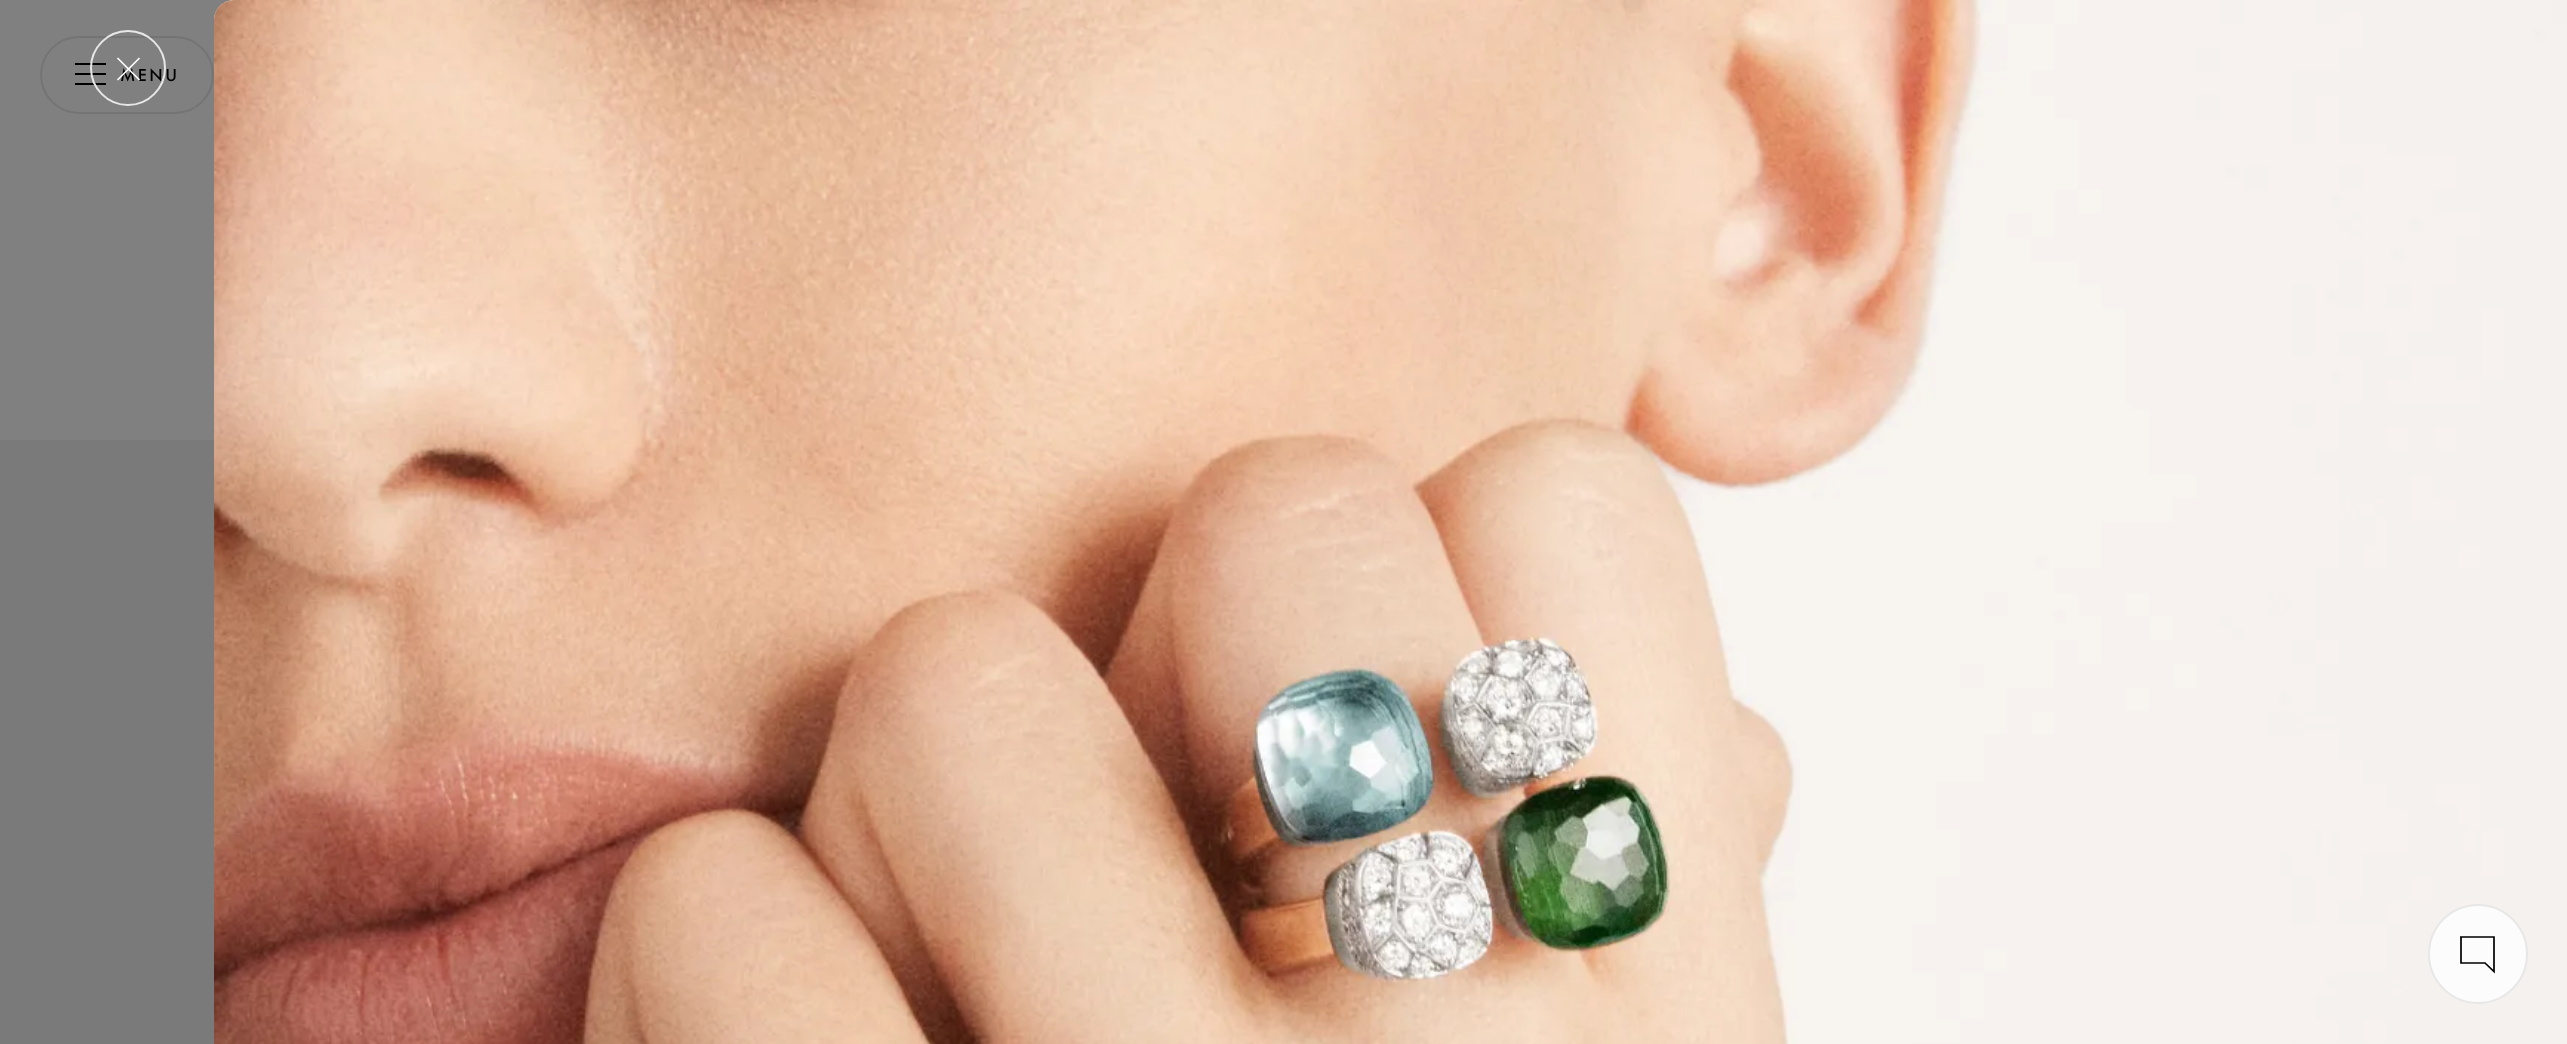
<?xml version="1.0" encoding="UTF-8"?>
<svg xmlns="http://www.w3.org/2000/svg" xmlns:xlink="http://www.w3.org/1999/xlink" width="2567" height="1044">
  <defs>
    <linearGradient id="g1" gradientUnits="userSpaceOnUse" x1="748" y1="-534" x2="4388" y2="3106"><stop offset="0.25" stop-color="#ebebeb" /><stop offset="0.5" stop-color="#f5f5f5" /><stop offset="0.75" stop-color="#ebebeb" /></linearGradient>
  </defs>
  <rect width="100%" height="100%" fill="#808080" />
  <rect y="440" width="20" height="20" fill="#7b7a7a" />
  <rect y="440" width="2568" height="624" rx="20" fill="#7b7a7a" />
  <path d="M 234 0 h 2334 v 1044 h -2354 v -1024 c 0 -11 9 -20 20 -20 z" fill="url(#g1)" />
  <image x="214" y="0" width="2353" height="1044" xlink:href="image1.png" />
  <circle cx="2478" cy="954" r="49" fill="#fdfcfc" stroke="#e7e7e7" stroke-width="2" />
  <path d="M 2461 937 v 26 h 24 l 9 8.5 v -34.5 h -34" fill="none" stroke="#000000" stroke-width="1.7" />
  <rect x="41" y="37" width="172" height="76" rx="38" fill="none" stroke="#747474" stroke-width="2" />
  <path d="M 75 64 h 31 m -31 10 h 31 m -31 10 h 31" fill="none" stroke="#000000" stroke-width="2" />
  <text x="120" y="81" style="font-family: Futura PT; font-size: 18px; font-weight: 500; letter-spacing: 2.5px; fill: #000000">MENU</text>
  <circle cx="128" cy="68" r="37" fill="none" stroke="#e7e7e7" stroke-width="2" />
  <circle cx="156" cy="70" r="2" fill="#808080" />
  <path d="M 117.5 58 l 22 22 m -22 0 l 22 -22" fill="none" stroke="#ffffff" stroke-width="1.6" />
</svg>
